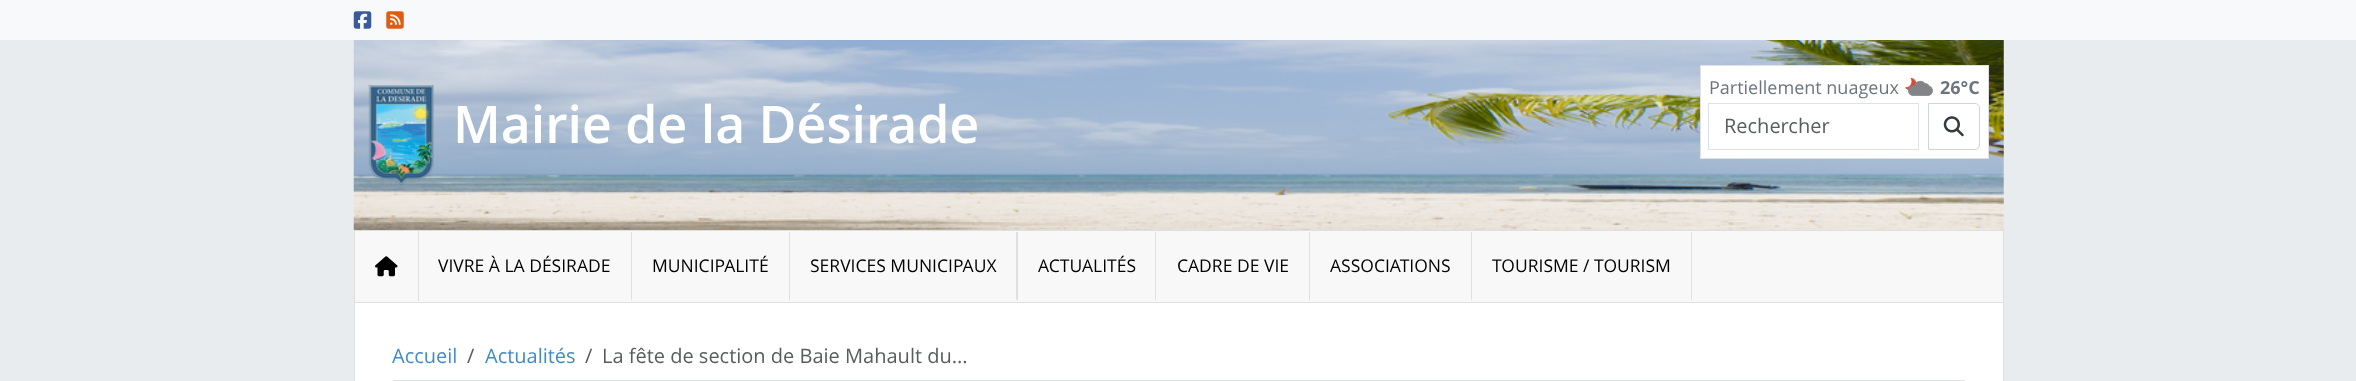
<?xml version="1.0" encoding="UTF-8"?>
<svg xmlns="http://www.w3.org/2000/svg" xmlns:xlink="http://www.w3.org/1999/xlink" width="2356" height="381">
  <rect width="100%" height="100%" fill="#e9ecef" />
  <rect width="2356" height="40" fill="#f8f9fa" />
  <image x="353" y="11" width="19" height="18" xlink:href="image1.png" />
  <image x="386" y="11" width="18" height="18" xlink:href="image2.png" />
  <image x="353" y="40" width="1651" height="190" xlink:href="image3.png" />
  <image x="368" y="85" width="66" height="100" xlink:href="image4.png" />
  <rect x="1700.5" y="65.5" width="288" height="93" fill="#ffffff" stroke="#dee2e6" />
  <image x="1905" y="77" width="28" height="19" xlink:href="image5.png" />
  <rect x="1708.5" y="103.5" width="210" height="46" fill="none" stroke="#dee2e6" />
  <path d="M 1928.5 103.5 h 46.5 c 2.5 0 4.5 2 4.5 4.5 v 37 c 0 2.5 -2 4.5 -4.5 4.5 h -46.5 z" fill="none" stroke="#ced4da" />
  <image x="1943" y="116" width="21" height="21" xlink:href="image6.png" />
  <rect x="354.5" y="230.5" width="1649" height="72" fill="#f8f8f8" stroke="#dfdfdf" />
  <rect x="418" y="231" width="1" height="70" fill="#dfdfdf" />
  <image x="375" y="256" width="23" height="21" xlink:href="image7.png" />
  <path d="M 632 232 v 69 l -1 -2 v -67 z" fill="#dfdfdf" />
  <path d="M 790 232 v 69 l -1 -2 v -67 z" fill="#dfdfdf" />
  <path d="M 1018 232 v 69 l -2 -2 v -67 z" fill="#dfdfdf" />
  <path d="M 1156 232 v 69 l -1 -2 v -67 z" fill="#dfdfdf" />
  <path d="M 1310 232 v 69 l -1 -2 v -67 z" fill="#dfdfdf" />
  <path d="M 1472 232 v 69 l -1 -2 v -67 z" fill="#dfdfdf" />
  <path d="M 1692 232 v 69 l -1 -2 v -67 z" fill="#dfdfdf" />
  <rect x="355" y="303" width="1648" height="78" fill="#ffffff" />
  <rect x="2003" y="303" width="1" height="78" fill="#dee2e6" />
  <rect x="354" y="303" width="1" height="78" fill="#dee2e6" />
  <rect x="393" y="380" width="1572" height="1" fill="#dee2e6" />
  <text x="453" y="143" style="font-family: Open Sans; font-size: 51.75px; font-weight: 600; fill: #ffffff">Mairie de la Désirade</text>
  <text x="1709" y="94" style="font-family: Open Sans; font-size: 18px; fill: #6c757d">Partiellement nuageux</text>
  <text x="1940" y="94" style="font-family: Open Sans; font-size: 18px; font-weight: bold; fill: #6c757d">26°C</text>
  <text x="1724" y="133" style="font-family: Open Sans; font-size: 20px; fill: #595c5f">Rechercher</text>
  <text x="438" y="272" style="font-family: Open Sans; font-size: 17.5px; fill: #000000">VIVRE À LA DÉSIRADE</text>
  <text x="652" y="272" style="font-family: Open Sans; font-size: 17.5px; fill: #000000">MUNICIPALITÉ</text>
  <text x="810" y="272" style="font-family: Open Sans; font-size: 17.5px; fill: #000000">SERVICES MUNICIPAUX</text>
  <text x="1038" y="272" style="font-family: Open Sans; font-size: 17.5px; fill: #000000">ACTUALITÉS</text>
  <text x="1177" y="272" style="font-family: Open Sans; font-size: 17.5px; fill: #000000">CADRE DE VIE</text>
  <text x="1330" y="272" style="font-family: Open Sans; font-size: 17.5px; fill: #000000">ASSOCIATIONS</text>
  <text x="1492" y="272" style="font-family: Open Sans; font-size: 17.5px; fill: #000000">TOURISME / TOURISM</text>
  <text x="392" y="363" style="font-family: Open Sans; font-size: 20px; fill: #428bca">Accueil</text>
  <text x="467" y="363" style="font-family: Open Sans; font-size: 20px; fill: #595c5f">/</text>
  <text x="485" y="363" style="font-family: Open Sans; font-size: 20px; fill: #428bca">Actualités</text>
  <text x="585" y="363" style="font-family: Open Sans; font-size: 20px; fill: #595c5f">/</text>
  <text x="602" y="363" style="font-family: Open Sans; font-size: 20px; fill: #595c5f">La fête de section de Baie Mahault du...</text>
</svg>
